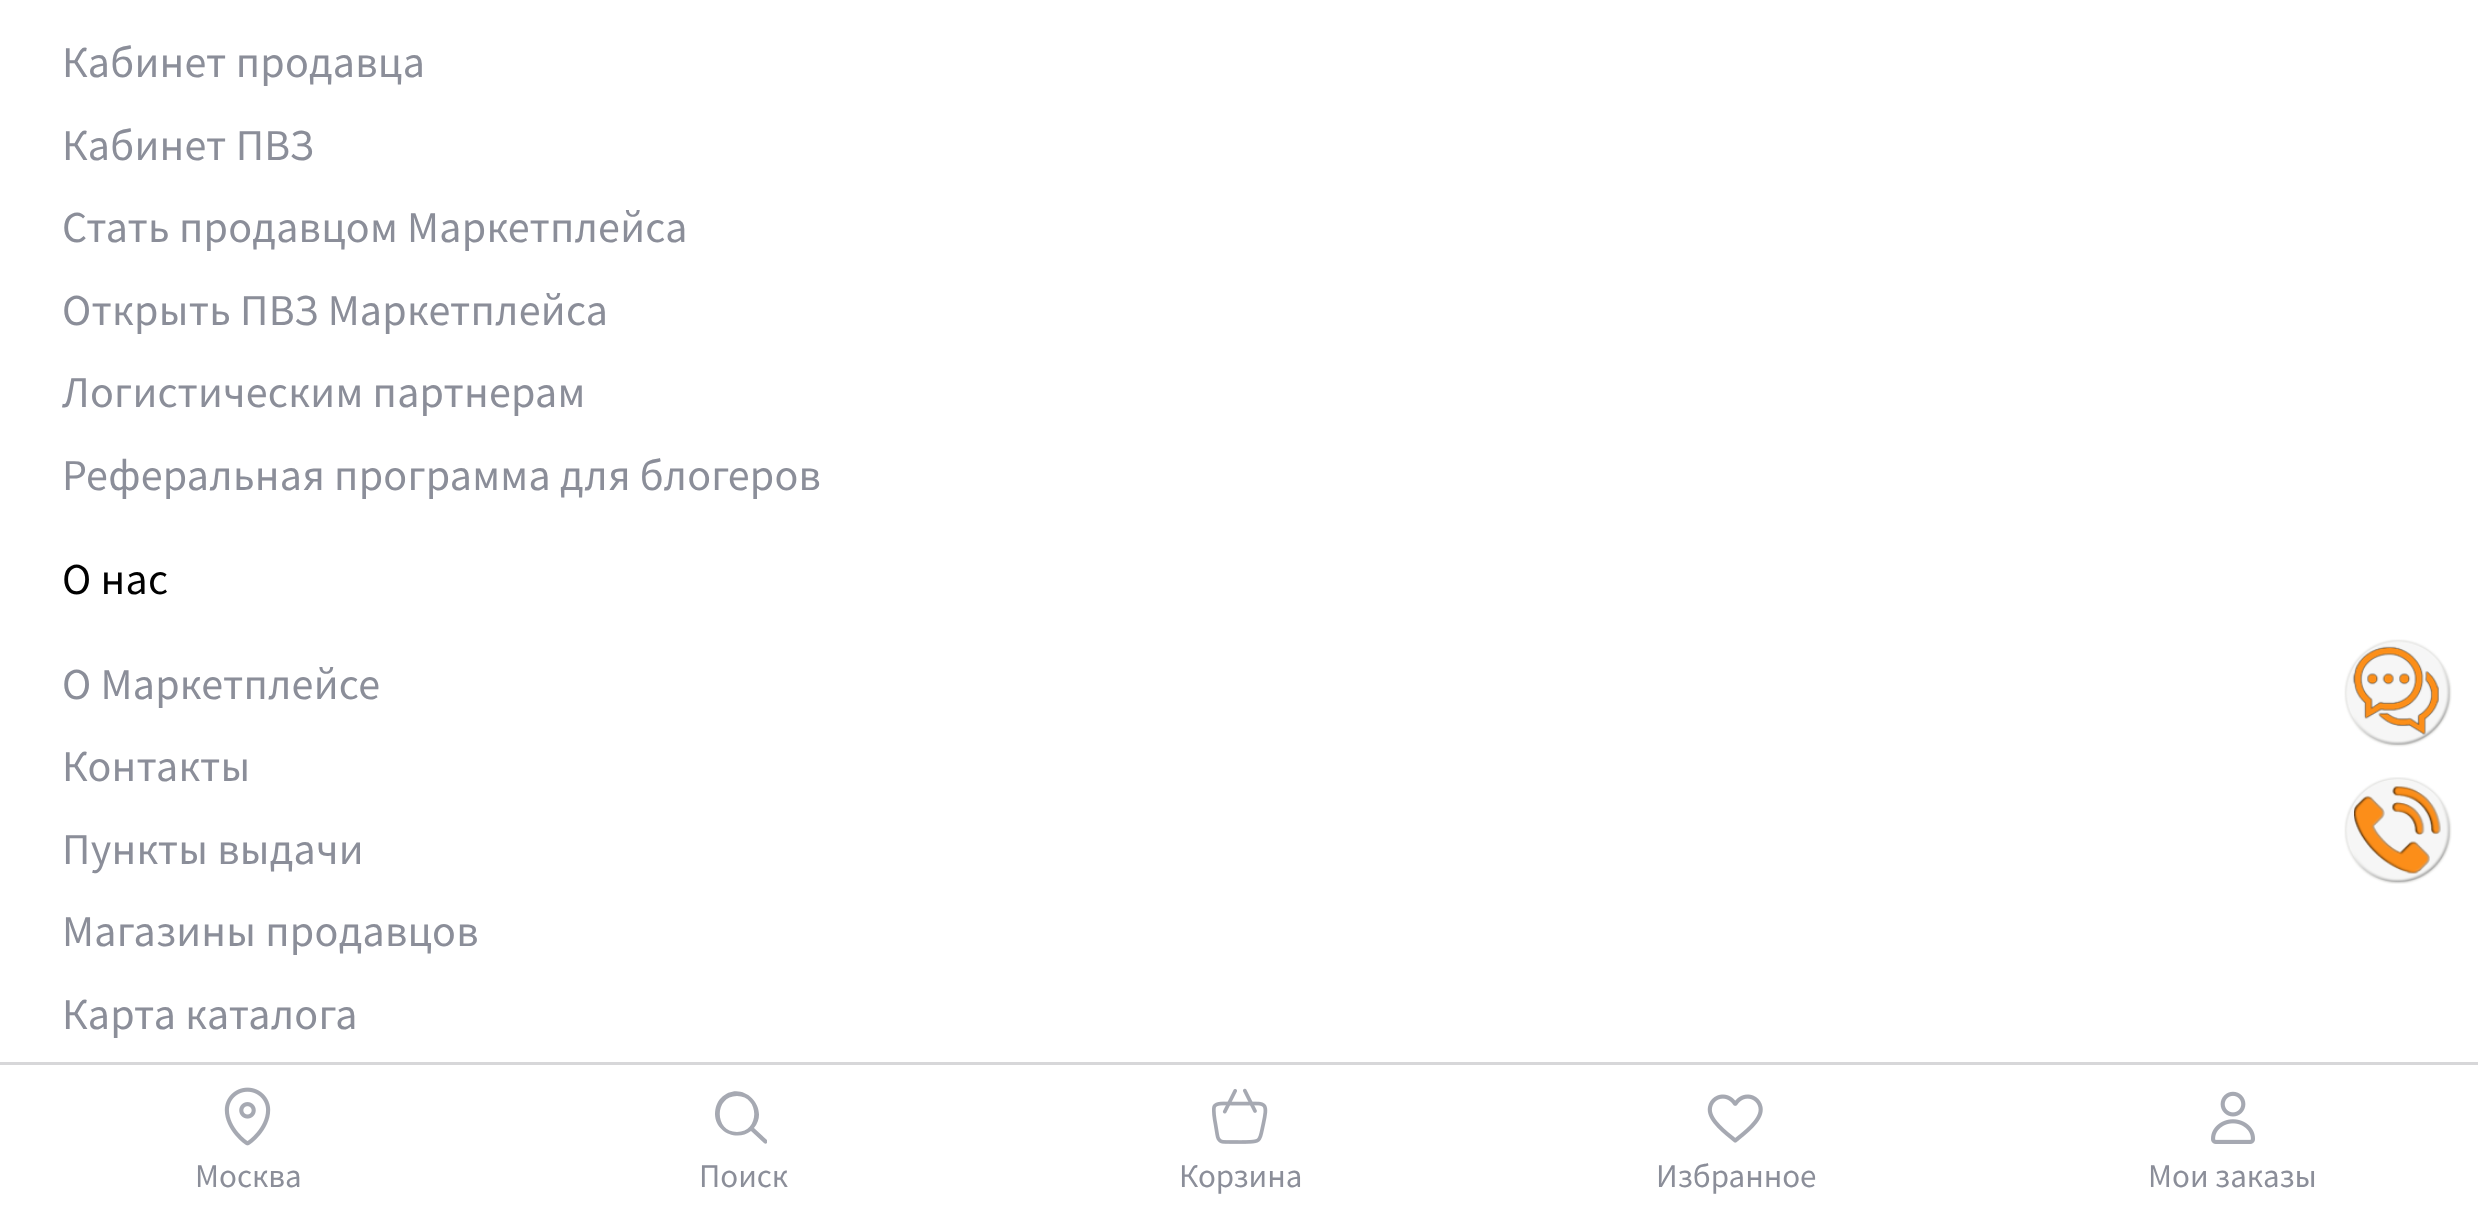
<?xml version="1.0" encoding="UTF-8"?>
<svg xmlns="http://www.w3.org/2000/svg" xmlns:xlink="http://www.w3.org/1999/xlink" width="2478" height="1214">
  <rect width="100%" height="100%" fill="#ffffff" />
  <rect y="1062" width="2478" height="3" fill="#d7d7d9" />
  <image x="224" y="1087" width="47" height="59" xlink:href="image1.png" />
  <path d="M 715 1114 c 0 -6 2 -12 6 -16 c 20 -20 50 9 33 30 l 13 12 c 0 1 0 3 0 3 c -1 1 -2 1 -3 0 l -13 -12 c -14 11 -36 1 -36 -17 z m 22 -18 c -23 0 -23 36 0 36 c 23 0 23 -36 0 -36 z" fill="#a6a9b2" />
  <image x="1212" y="1088" width="56" height="56" xlink:href="image2.png" />
  <image x="1707" y="1094" width="56" height="49" xlink:href="image3.png" />
  <image x="2211" y="1091" width="44" height="53" xlink:href="image4.png" />
  <image x="2344" y="639" width="108" height="108" xlink:href="image5.png" />
  <image x="2344" y="777" width="108" height="107" xlink:href="image6.png" />
  <text x="62" y="77" style="font-family: Source Sans Pro; font-size: 44px; letter-spacing: 0.25px; fill: #8b8e99">Кабинет продавца</text>
  <text x="62" y="160" style="font-family: Source Sans Pro; font-size: 44px; letter-spacing: 0.25px; fill: #8b8e99">Кабинет ПВЗ</text>
  <text x="62" y="242" style="font-family: Source Sans Pro; font-size: 44px; letter-spacing: 0.25px; fill: #8b8e99">Стать продавцом Маркетплейса</text>
  <text x="62" y="325" style="font-family: Source Sans Pro; font-size: 44px; letter-spacing: 0.25px; fill: #8b8e99">Открыть ПВЗ Маркетплейса</text>
  <text x="62" y="407" style="font-family: Source Sans Pro; font-size: 44px; letter-spacing: 0.25px; fill: #8b8e99">Логистическим партнерам</text>
  <text x="62" y="490" style="font-family: Source Sans Pro; font-size: 44px; letter-spacing: 0.25px; fill: #8b8e99">Реферальная программа для блогеров</text>
  <text x="62" y="594" style="font-family: Source Sans Pro; font-size: 44px; letter-spacing: 0.25px; fill: #000000">О нас</text>
  <text x="62" y="699" style="font-family: Source Sans Pro; font-size: 44px; letter-spacing: 0.25px; fill: #8b8e99">О Маркетплейсе</text>
  <text x="62" y="781" style="font-family: Source Sans Pro; font-size: 44px; letter-spacing: 0.25px; fill: #8b8e99">Контакты</text>
  <text x="62" y="864" style="font-family: Source Sans Pro; font-size: 44px; letter-spacing: 0.25px; fill: #8b8e99">Пункты выдачи</text>
  <text x="62" y="946" style="font-family: Source Sans Pro; font-size: 44px; letter-spacing: 0.25px; fill: #8b8e99">Магазины продавцов</text>
  <text x="62" y="1029" style="font-family: Source Sans Pro; font-size: 44px; letter-spacing: 0.25px; fill: #8b8e99">Карта каталога</text>
  <text x="195" y="1187" style="font-family: Source Sans Pro; font-size: 33px; fill: #8b8e99">Москва</text>
  <text x="699" y="1187" style="font-family: Source Sans Pro; font-size: 33px; fill: #8b8e99">Поиск</text>
  <text x="1179" y="1187" style="font-family: Source Sans Pro; font-size: 33px; fill: #8b8e99">Корзина</text>
  <text x="1656" y="1187" style="font-family: Source Sans Pro; font-size: 33px; fill: #8b8e99">Избранное</text>
  <text x="2148" y="1187" style="font-family: Source Sans Pro; font-size: 33px; fill: #8b8e99">Мои заказы</text>
</svg>
